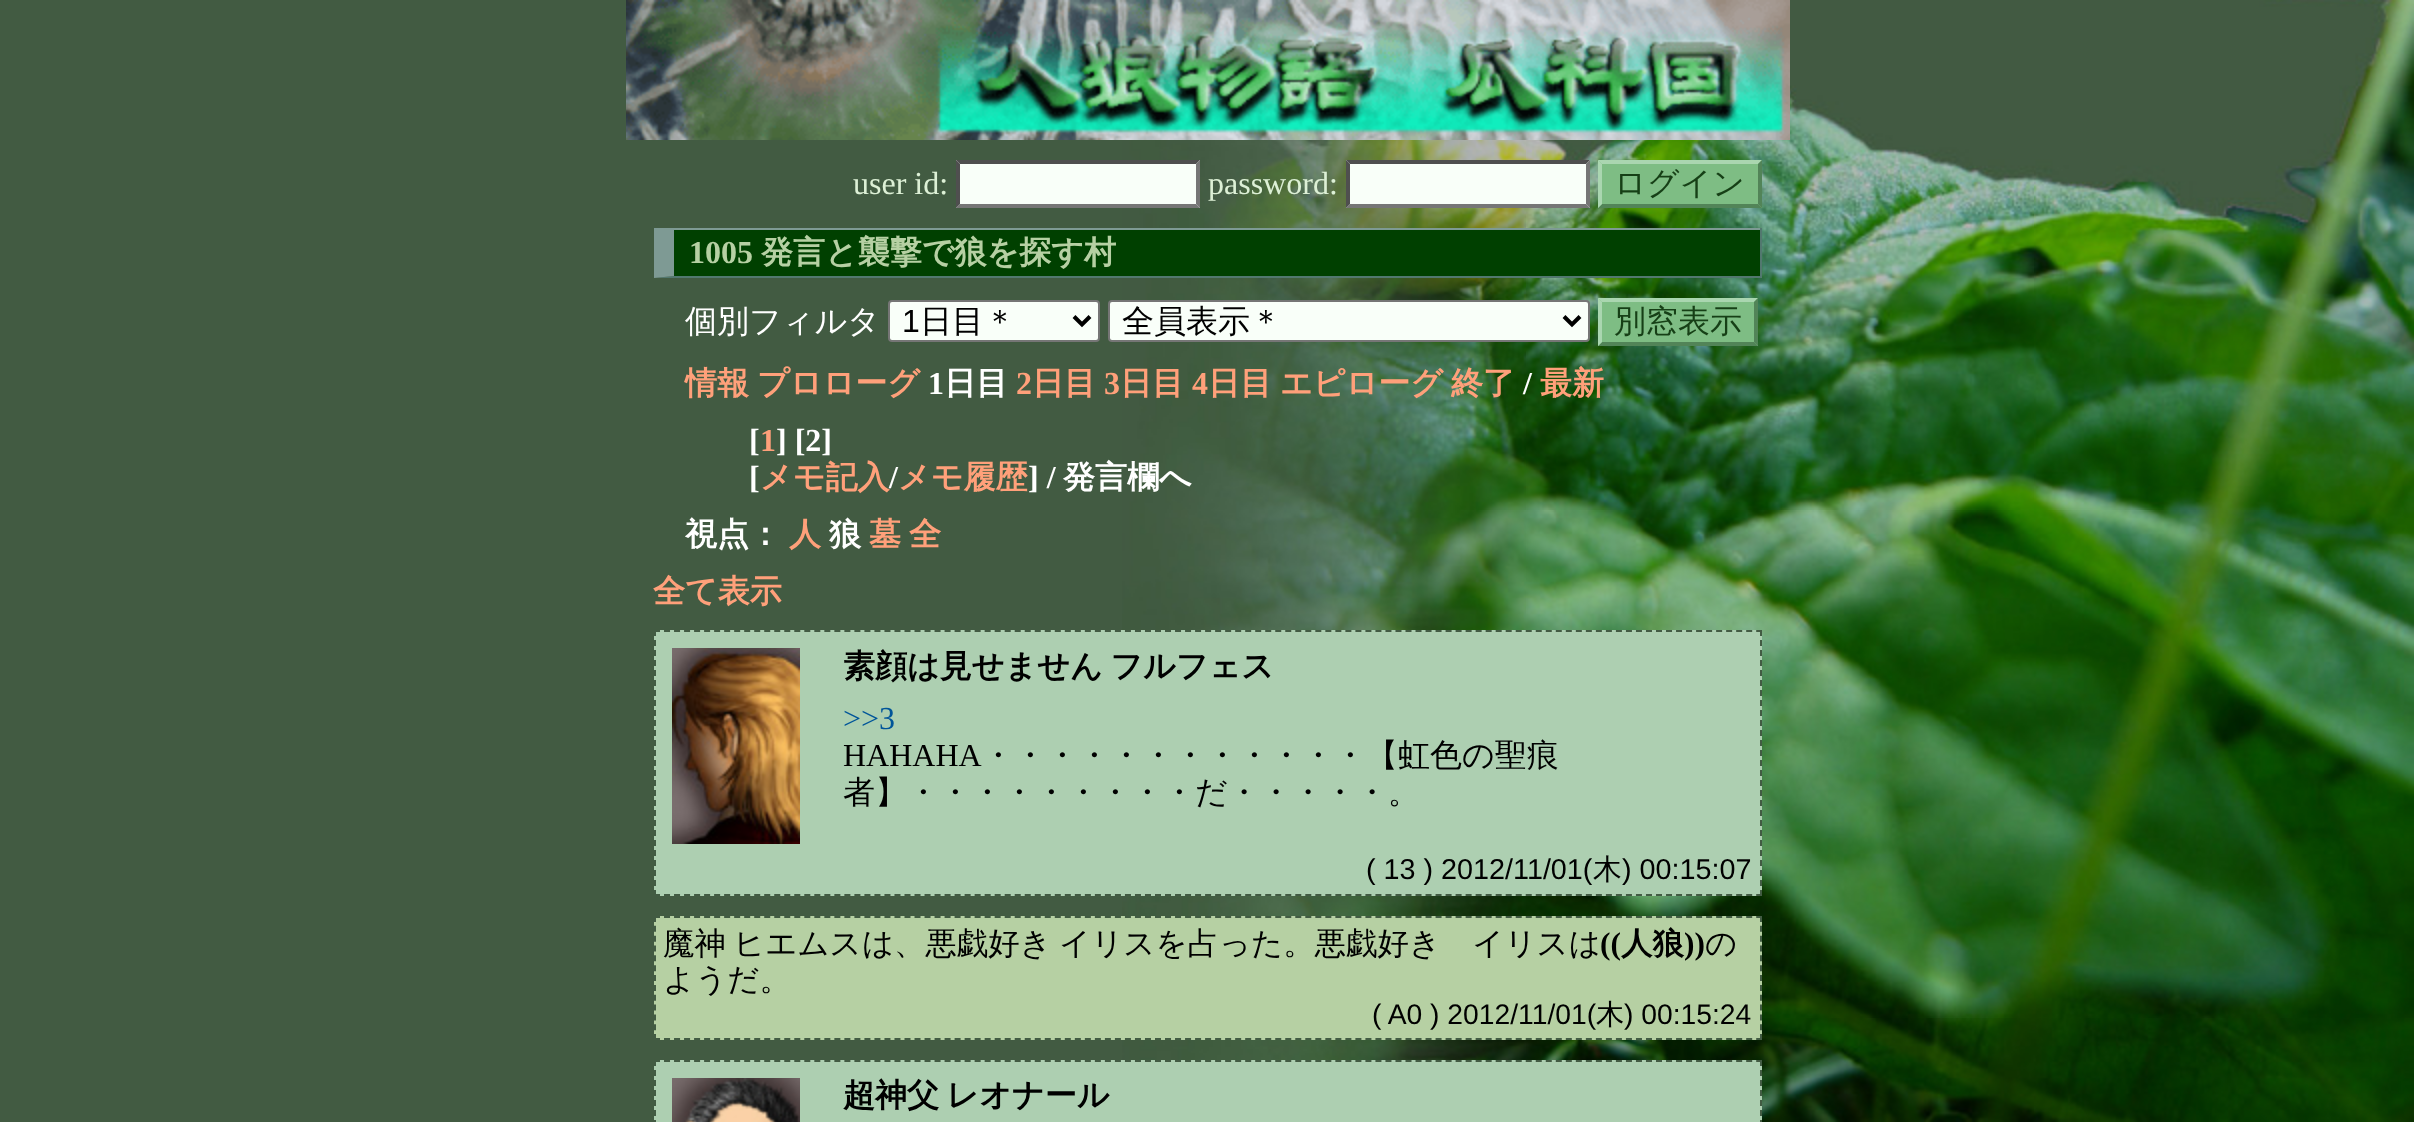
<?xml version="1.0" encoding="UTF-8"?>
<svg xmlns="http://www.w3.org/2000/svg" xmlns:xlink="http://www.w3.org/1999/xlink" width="2414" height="1122">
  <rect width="100%" height="100%" fill="#425b42" />
  <image x="1122" y="0" width="1292" height="1122" xlink:href="image1.png" />
  <image x="626" y="0" width="1164" height="140" xlink:href="image2.png" />
  <rect x="956" y="160" width="244" height="48" fill="#f9fff9" />
  <path d="M 956 160 h 244 l -4 4 h -236 z" fill="#4f4f4f" />
  <path d="M 1200 160 v 48 l -4 -4 v -40 z" fill="#767676" />
  <path d="M 1200 208 h -244 l 4 -4 h 236 z" fill="#767676" />
  <path d="M 956 208 v -48 l 4 4 v 40 z" fill="#4f4f4f" />
  <rect x="1346" y="160" width="244" height="48" fill="#f9fff9" />
  <path d="M 1346 160 h 244 l -4 4 h -236 z" fill="#4f4f4f" />
  <path d="M 1590 160 v 48 l -4 -4 v -40 z" fill="#767676" />
  <path d="M 1590 208 h -244 l 4 -4 h 236 z" fill="#767676" />
  <path d="M 1346 208 v -48 l 4 4 v 40 z" fill="#4f4f4f" />
  <rect x="1598" y="160" width="164" height="48" fill="#7ebd84" />
  <path d="M 1598 160 h 164 l -4 4 h -156 z" fill="#aad6b0" />
  <path d="M 1762 160 v 48 l -4 -4 v -40 z" fill="#528458" />
  <path d="M 1762 208 h -164 l 4 -4 h 156 z" fill="#528458" />
  <path d="M 1598 208 v -48 l 4 4 v 40 z" fill="#aad6b0" />
  <rect x="674" y="230" width="1086" height="46" fill="#004000" />
  <rect x="654" y="228" width="1108" height="2" fill="#7e9a94" />
  <rect x="1760" y="228" width="2" height="50" fill="#52786f" />
  <path d="M 1762 278 h -1108 l 20 -2 h 1086 z" fill="#52786f" />
  <path d="M 654 278 v -50 l 20 2 v 46 z" fill="#7e9a94" />
  <rect x="889" y="301" width="210" height="40" rx="3" fill="#f9fff9" stroke="#767676" stroke-width="2" />
  <path d="M 1074 316.5 l 8 8 l 8 -8" fill="none" stroke="#000000" stroke-width="4" />
  <rect x="1109" y="301" width="480" height="40" rx="3" fill="#f9fff9" stroke="#767676" stroke-width="2" />
  <path d="M 1564 316.5 l 8 8 l 8 -8" fill="none" stroke="#000000" stroke-width="4" />
  <rect x="1598" y="298" width="160" height="48" fill="#7ebd84" />
  <path d="M 1598 298 h 160 l -4 4 h -152 z" fill="#aad6b0" />
  <path d="M 1758 298 v 48 l -4 -4 v -40 z" fill="#528458" />
  <path d="M 1758 346 h -160 l 4 -4 h 152 z" fill="#528458" />
  <path d="M 1598 346 v -48 l 4 4 v 40 z" fill="#aad6b0" />
  <rect x="654" y="630" width="1108" height="266" fill="#adcfb1" />
  <path d="M 654 631 h 1108" fill="none" stroke="#425b43" stroke-width="2" stroke-dasharray="6 4.02" />
  <path d="M 1761 630 v 266" fill="none" stroke="#425b43" stroke-width="2" stroke-dasharray="6 4" />
  <path d="M 654 895 h 1108" fill="none" stroke="#425b43" stroke-width="2" stroke-dasharray="6 4.02" />
  <path d="M 655 630 v 266" fill="none" stroke="#425b43" stroke-width="2" stroke-dasharray="6 4" />
  <image x="672" y="648" width="128" height="196" xlink:href="image3.png" />
  <rect x="654" y="916" width="1108" height="124" fill="#b6d0a3" />
  <path d="M 654 917 h 1108" fill="none" stroke="#425b43" stroke-width="2" stroke-dasharray="6 4.02" />
  <path d="M 1761 916 v 124" fill="none" stroke="#425b43" stroke-width="2" stroke-dasharray="6 3.84" />
  <path d="M 654 1039 h 1108" fill="none" stroke="#425b43" stroke-width="2" stroke-dasharray="6 4.02" />
  <path d="M 655 916 v 124" fill="none" stroke="#425b43" stroke-width="2" stroke-dasharray="6 3.84" />
  <rect x="654" y="1060" width="1108" height="62" fill="#adcfb1" />
  <path d="M 654 1061 h 1108" fill="none" stroke="#425b43" stroke-width="2" stroke-dasharray="6 4.02" />
  <path d="M 1761 1060 v 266" fill="none" stroke="#425b43" stroke-width="2" stroke-dasharray="6 4" />
  <path d="M 655 1060 v 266" fill="none" stroke="#425b43" stroke-width="2" stroke-dasharray="6 4" />
  <image x="672" y="1078" width="128" height="44" xlink:href="image4.png" />
  <text x="853" y="194" style="font-family: Liberation Serif; font-size: 32px; fill: #ddf0d6">user id:</text>
  <text x="1208" y="194" style="font-family: Liberation Serif; font-size: 32px; fill: #ddf0d6">password:</text>
  <text x="1614" y="194" style="font-family: WenQuanYi Zen Hei; font-size: 32px; font-weight: 500; fill: #163f16">ログイン</text>
  <text x="689" y="263" style="font-family: Liberation Serif; font-size: 32px; font-weight: bold; fill: #b6d0a3">1005</text>
  <text x="761" y="263" style="font-family: WenQuanYi Zen Hei; font-size: 32px; font-weight: bold; fill: #b6d0a3">発言と襲撃で狼を探す村</text>
  <text x="685" y="332" style="font-family: WenQuanYi Zen Hei; font-size: 32px; font-weight: 500; fill: #ffffff">個別フィルタ</text>
  <text x="902" y="332" style="font-family: Liberation Sans; font-size: 32px; fill: #000000">1</text>
  <text x="920" y="332" style="font-family: WenQuanYi Zen Hei; font-size: 32px; font-weight: 500; fill: #000000">日目＊</text>
  <text x="1122" y="332" style="font-family: WenQuanYi Zen Hei; font-size: 32px; font-weight: 500; fill: #000000">全員表示＊</text>
  <text x="1614" y="332" style="font-family: WenQuanYi Zen Hei; font-size: 32px; font-weight: 500; fill: #163f16">別窓表示</text>
  <text x="685" y="394" style="font-family: WenQuanYi Zen Hei; font-size: 32px; font-weight: bold; fill: #ffa07a">情報</text>
  <text x="757" y="394" style="font-family: WenQuanYi Zen Hei; font-size: 32px; font-weight: bold; fill: #ffa07a">プロローグ</text>
  <text x="928" y="394" style="font-family: Liberation Serif; font-size: 32px; font-weight: bold; fill: #ffffff">1</text>
  <text x="944" y="394" style="font-family: WenQuanYi Zen Hei; font-size: 32px; font-weight: bold; fill: #ffffff">日目</text>
  <text x="1016" y="394" style="font-family: Liberation Serif; font-size: 32px; font-weight: bold; fill: #ffa07a">2</text>
  <text x="1032" y="394" style="font-family: WenQuanYi Zen Hei; font-size: 32px; font-weight: bold; fill: #ffa07a">日目</text>
  <text x="1104" y="394" style="font-family: Liberation Serif; font-size: 32px; font-weight: bold; fill: #ffa07a">3</text>
  <text x="1120" y="394" style="font-family: WenQuanYi Zen Hei; font-size: 32px; font-weight: bold; fill: #ffa07a">日目</text>
  <text x="1192" y="394" style="font-family: Liberation Serif; font-size: 32px; font-weight: bold; fill: #ffa07a">4</text>
  <text x="1208" y="394" style="font-family: WenQuanYi Zen Hei; font-size: 32px; font-weight: bold; fill: #ffa07a">日目</text>
  <text x="1280" y="394" style="font-family: WenQuanYi Zen Hei; font-size: 32px; font-weight: bold; fill: #ffa07a">エピローグ</text>
  <text x="1451" y="394" style="font-family: WenQuanYi Zen Hei; font-size: 32px; font-weight: bold; fill: #ffa07a">終了</text>
  <text x="1523" y="394" style="font-family: Liberation Serif; font-size: 32px; font-weight: bold; fill: #ffffff">/</text>
  <text x="1540" y="394" style="font-family: WenQuanYi Zen Hei; font-size: 32px; font-weight: bold; fill: #ffa07a">最新</text>
  <text x="749" y="451" style="font-family: Liberation Serif; font-size: 32px; font-weight: bold; fill: #ffffff">[</text>
  <text x="760" y="451" style="font-family: Liberation Serif; font-size: 32px; font-weight: bold; fill: #ffa07a">1</text>
  <text x="776" y="451" style="font-family: Liberation Serif; font-size: 32px; font-weight: bold; fill: #ffffff">] [2]</text>
  <text x="749" y="488" style="font-family: Liberation Serif; font-size: 32px; font-weight: bold; fill: #ffffff">[</text>
  <text x="760" y="488" style="font-family: WenQuanYi Zen Hei; font-size: 32px; font-weight: bold; fill: #ffa07a">メモ記入</text>
  <text x="889" y="488" style="font-family: Liberation Serif; font-size: 32px; font-weight: bold; fill: #ffffff">/</text>
  <text x="898" y="488" style="font-family: WenQuanYi Zen Hei; font-size: 32px; font-weight: bold; fill: #ffa07a">メモ履歴</text>
  <text x="1028" y="488" style="font-family: Liberation Serif; font-size: 32px; font-weight: bold; fill: #ffffff">] /</text>
  <text x="1063" y="488" style="font-family: WenQuanYi Zen Hei; font-size: 32px; font-weight: bold; fill: #ffffff">発言欄へ</text>
  <text x="685" y="545" style="font-family: WenQuanYi Zen Hei; font-size: 32px; font-weight: bold; fill: #ffffff">視点：</text>
  <text x="789" y="545" style="font-family: WenQuanYi Zen Hei; font-size: 32px; font-weight: bold; fill: #ffa07a">人</text>
  <text x="829" y="545" style="font-family: WenQuanYi Zen Hei; font-size: 32px; font-weight: bold; fill: #ffffff">狼</text>
  <text x="869" y="545" style="font-family: WenQuanYi Zen Hei; font-size: 32px; font-weight: bold; fill: #ffa07a">墓</text>
  <text x="909" y="545" style="font-family: WenQuanYi Zen Hei; font-size: 32px; font-weight: bold; fill: #ffa07a">全</text>
  <text x="653" y="602" style="font-family: WenQuanYi Zen Hei; font-size: 32px; font-weight: bold; fill: #ffa07a">全て表示</text>
  <text x="843" y="677" word-spacing="-2" style="font-family: WenQuanYi Zen Hei; font-size: 32px; font-weight: bold; fill: #000000">素顔は見せません フルフェス</text>
  <text x="843" y="729" style="font-family: Liberation Serif; font-size: 32px; fill: #005599">&gt;&gt;3</text>
  <text x="843" y="766" style="font-family: Liberation Serif; font-size: 32px; fill: #000000">HAHAHA</text>
  <text x="982" y="766" style="font-family: WenQuanYi Zen Hei; font-size: 32px; font-weight: 500; fill: #000000">・・・・・・・・・・・・【虹色の聖痕</text>
  <text x="843" y="803" style="font-family: WenQuanYi Zen Hei; font-size: 32px; font-weight: 500; fill: #000000">者】・・・・・・・・・だ・・・・・。</text>
  <text x="1366" y="879" style="font-family: Liberation Sans; font-size: 28.75px; fill: #000000">( 13 ) 2012/11/01(</text>
  <text x="1593" y="879" style="font-family: WenQuanYi Zen Hei; font-size: 28.75px; font-weight: 500; fill: #000000">木</text>
  <text x="1622" y="879" style="font-family: Liberation Sans; font-size: 28.75px; fill: #000000">) 00:15:07</text>
  <text x="663" y="954" word-spacing="-2" style="font-family: WenQuanYi Zen Hei; font-size: 31.4px; font-weight: 500; fill: #000000">魔神 ヒエムス</text>
  <text x="862" y="954" style="font-family: WenQuanYi Zen Hei; font-size: 31.4px; font-weight: 500; fill: #000000">は</text>
  <text x="894" y="954" word-spacing="-2" style="font-family: WenQuanYi Zen Hei; font-size: 31.4px; font-weight: 500; fill: #000000">、悪戯好き イリスを占った。悪戯好き　イリスは</text>
  <text x="1600" y="954" style="font-family: Liberation Serif; font-size: 31.4px; font-weight: bold; fill: #000000">((</text>
  <text x="1621" y="954" style="font-family: WenQuanYi Zen Hei; font-size: 31.4px; font-weight: bold; fill: #000000">人狼</text>
  <text x="1684" y="954" style="font-family: Liberation Serif; font-size: 31.4px; font-weight: bold; fill: #000000">))</text>
  <text x="1705" y="954" style="font-family: WenQuanYi Zen Hei; font-size: 31.4px; font-weight: 500; fill: #000000">の</text>
  <text x="663" y="990" style="font-family: WenQuanYi Zen Hei; font-size: 31.4px; font-weight: 500; fill: #000000">ようだ。</text>
  <text x="1372" y="1024" style="font-family: Liberation Sans; font-size: 28.25px; fill: #000000">( A0 ) 2012/11/01(</text>
  <text x="1596" y="1024" style="font-family: WenQuanYi Zen Hei; font-size: 28.25px; font-weight: 500; fill: #000000">木</text>
  <text x="1624" y="1024" style="font-family: Liberation Sans; font-size: 28.25px; fill: #000000">) 00:15:24</text>
  <text x="843" y="1106" word-spacing="-2" style="font-family: WenQuanYi Zen Hei; font-size: 32px; font-weight: bold; fill: #000000">超神父 レオナール</text>
</svg>
